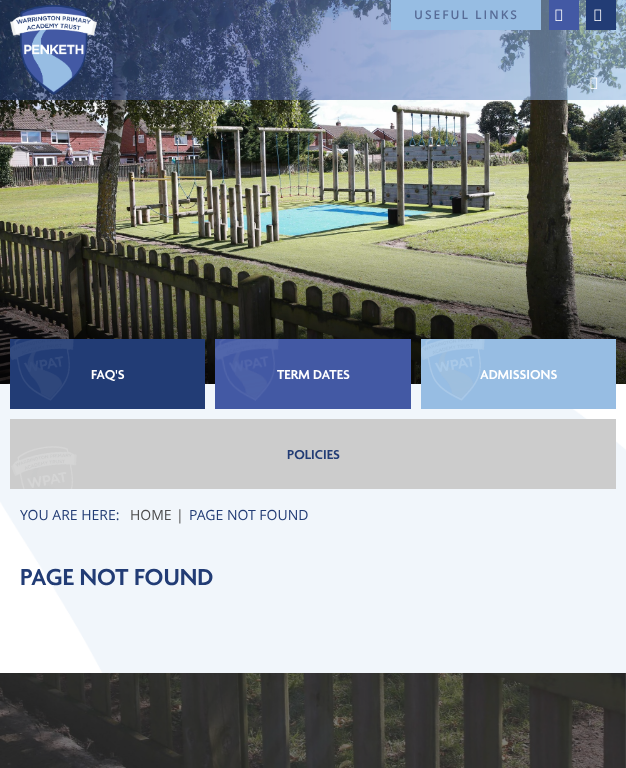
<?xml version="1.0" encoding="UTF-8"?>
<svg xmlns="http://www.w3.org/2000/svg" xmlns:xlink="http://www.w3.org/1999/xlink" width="626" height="768">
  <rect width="100%" height="100%" fill="#ffffff" />
  <image x="0" y="0" width="626" height="384" xlink:href="image1.png" />
  <rect x="549" width="30" height="30" fill="#4359a4" />
  <image x="555" y="9" width="8" height="12" xlink:href="image2.png" />
  <rect x="586" width="30" height="30" fill="#223c75" />
  <image x="594" y="9" width="8" height="12" xlink:href="image3.png" />
  <image x="10" y="5" width="87" height="90" xlink:href="image4.png" />
  <image x="590" y="77" width="8" height="12" xlink:href="image5.png" />
  <rect x="391" width="150" height="30" fill="#97bde3" />
  <image x="0" y="384" width="626" height="289" xlink:href="image10.png" />
  <rect x="10" y="339" width="195" height="70" fill="#223c75" />
  <image x="10" y="339" width="64" height="62" xlink:href="image6.png" />
  <rect x="215" y="339" width="196" height="70" fill="#4359a4" />
  <image x="215" y="339" width="64" height="62" xlink:href="image7.png" />
  <rect x="421" y="339" width="195" height="70" fill="#97bde3" />
  <image x="421" y="339" width="64" height="62" xlink:href="image8.png" />
  <rect x="10" y="419" width="606" height="70" fill="#cccccc" />
  <image x="11" y="446" width="66" height="43" xlink:href="image9.png" />
  <image x="0" y="673" width="626" height="95" xlink:href="image11.png" />
  <text x="414" y="19" style="font-family: Open Sans; font-size: 12px; font-weight: 600; letter-spacing: 2px; fill: #576b96">USEFUL LINKS</text>
  <text x="91" y="379" style="font-family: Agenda; font-size: 14px; font-weight: 600; fill: #ffffff">FAQ'S</text>
  <text x="277" y="379" style="font-family: Agenda; font-size: 14px; font-weight: 600; fill: #ffffff">TERM DATES</text>
  <text x="480" y="379" style="font-family: Agenda; font-size: 14px; font-weight: 600; fill: #ffffff">ADMISSIONS</text>
  <text x="287" y="459" style="font-family: Agenda; font-size: 14px; font-weight: 600; fill: #223c75">POLICIES</text>
  <text x="20" y="520" style="font-family: Open Sans; font-size: 14px; fill: #223c75">YOU ARE HERE:</text>
  <text x="130" y="520" style="font-family: Open Sans; font-size: 14px; fill: #4d4d4d">HOME</text>
  <text x="176" y="520" style="font-family: Open Sans; font-size: 14px; fill: #4d4d4d">|</text>
  <text x="189" y="520" style="font-family: Open Sans; font-size: 14px; fill: #223c75">PAGE NOT FOUND</text>
  <text x="20" y="585" style="font-family: Agenda; font-size: 25px; font-weight: 600; fill: #223c75">PAGE NOT FOUND</text>
</svg>
